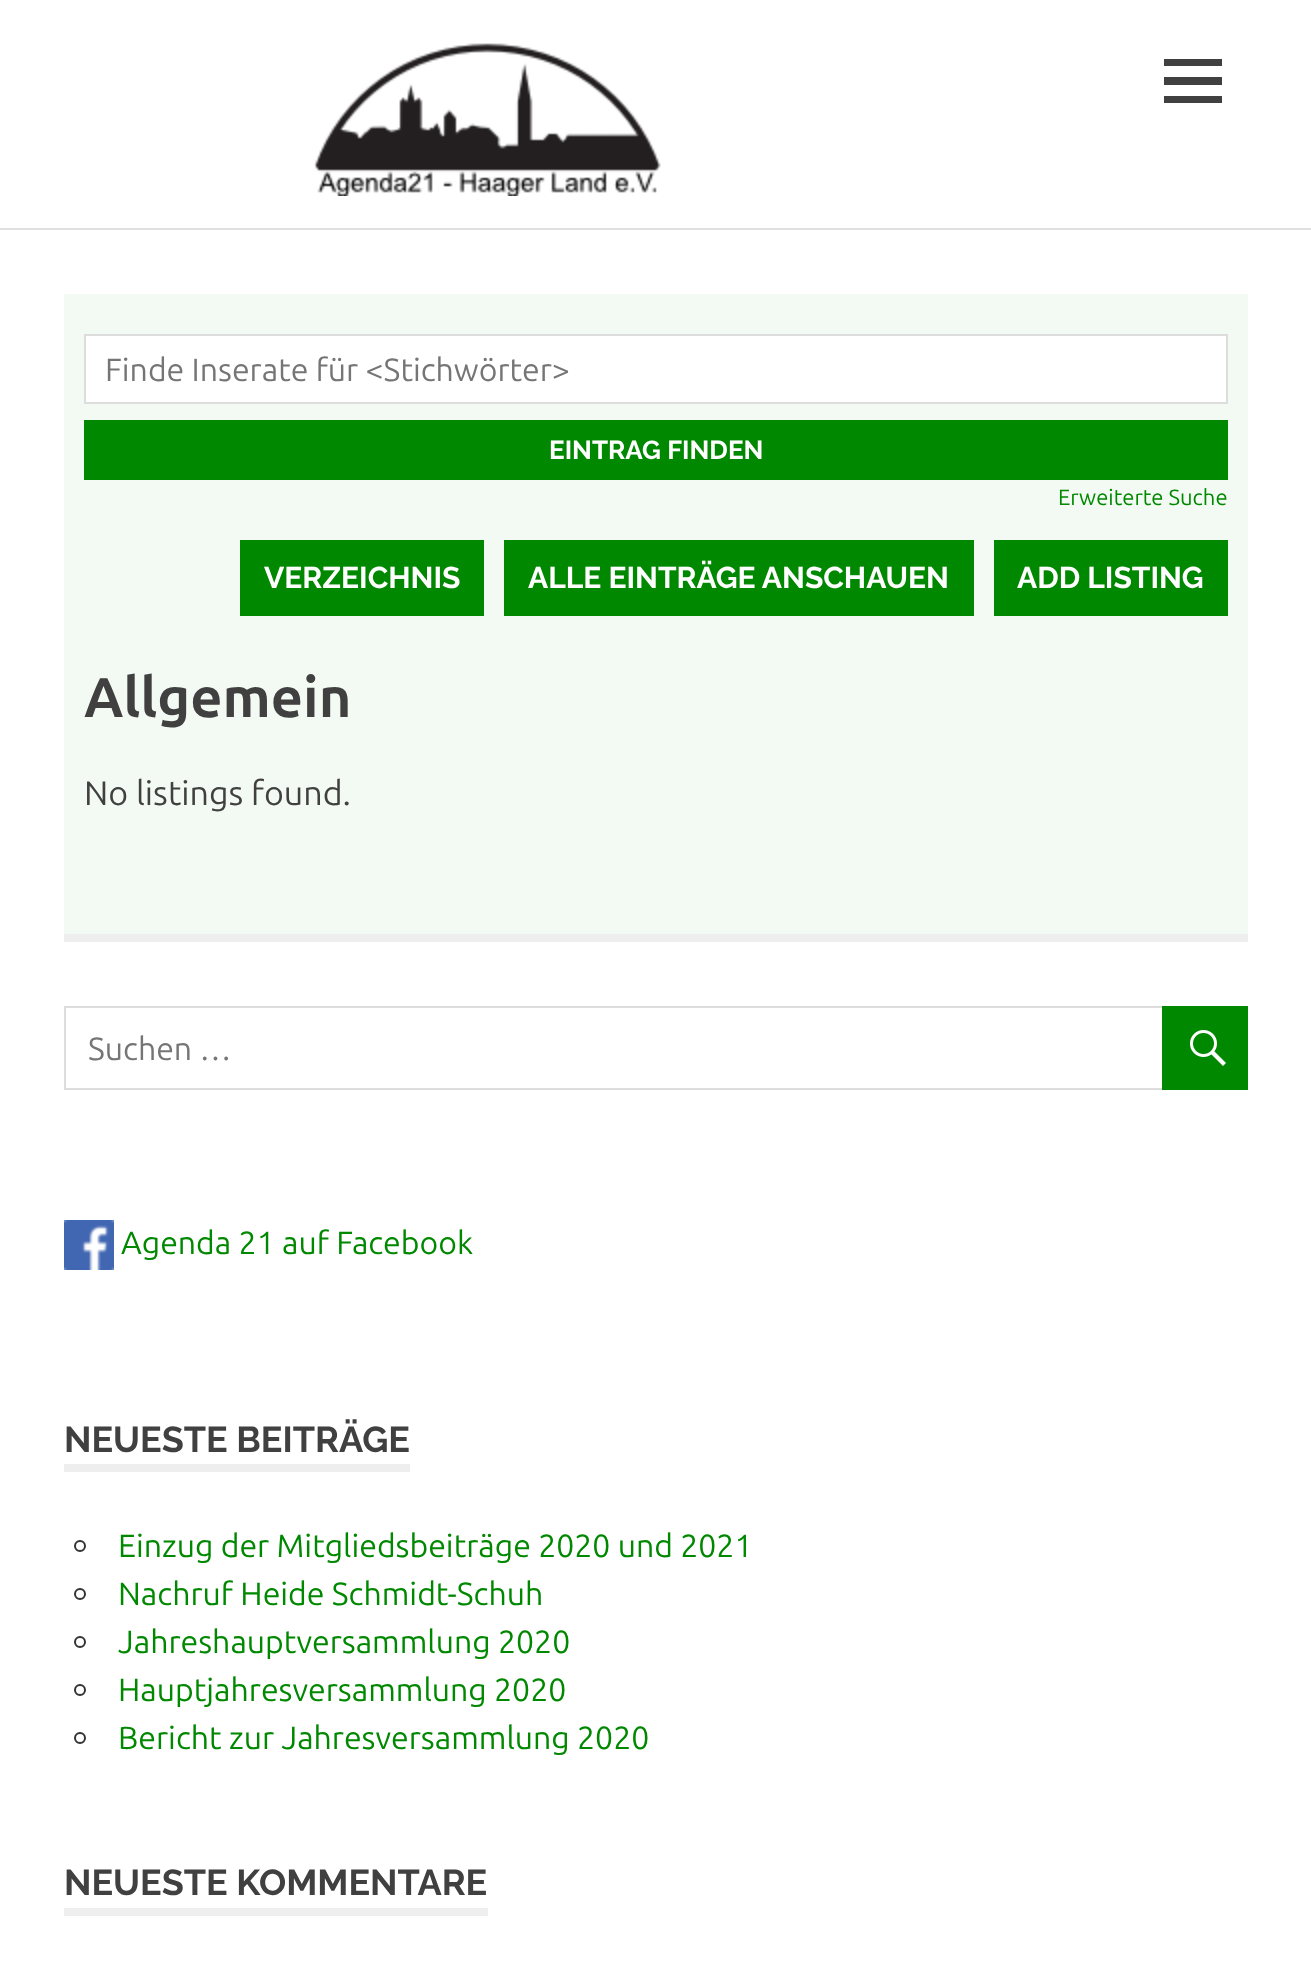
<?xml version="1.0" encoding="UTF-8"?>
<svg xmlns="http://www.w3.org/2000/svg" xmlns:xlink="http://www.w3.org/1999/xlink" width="1311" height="1981">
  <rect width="100%" height="100%" fill="#ffffff" />
  <rect y="228" width="1311" height="2" fill="#e0e0e0" />
  <image x="314" y="43" width="347" height="153" xlink:href="image1.png" />
  <path d="M 1164 103 v -7 h 58 v 7 z m 0 -44 h 58 v 7 h -58 z m 0 26 v -8 h 58 v 8 z" fill="#404040" />
  <rect x="64" y="294" width="1184" height="640" fill="#f3faf3" />
  <rect x="85" y="335" width="1142" height="68" fill="#ffffff" stroke="#dddddd" stroke-width="2" />
  <rect x="84" y="420" width="1144" height="60" fill="#008800" />
  <rect x="240" y="540" width="244" height="76" fill="#008800" />
  <rect x="504" y="540" width="470" height="76" fill="#008800" />
  <rect x="994" y="540" width="234" height="76" fill="#008800" />
  <rect x="64" y="934" width="1184" height="8" fill="#eeeeee" />
  <rect x="65" y="1007" width="1182" height="82" fill="none" stroke="#dddddd" stroke-width="2" />
  <rect x="1162" y="1006" width="86" height="84" fill="#008800" />
  <image x="1190" y="1030" width="36" height="36" xlink:href="image2.png" />
  <image x="64" y="1220" width="50" height="50" xlink:href="image3.png" />
  <rect x="64" y="1464" width="346" height="8" fill="#eeeeee" />
  <circle cx="80" cy="1546" r="5" fill="none" stroke="#333333" stroke-width="2" />
  <circle cx="80" cy="1594" r="5" fill="none" stroke="#333333" stroke-width="2" />
  <circle cx="80" cy="1642" r="5" fill="none" stroke="#333333" stroke-width="2" />
  <circle cx="80" cy="1690" r="5" fill="none" stroke="#333333" stroke-width="2" />
  <circle cx="80" cy="1738" r="5" fill="none" stroke="#333333" stroke-width="2" />
  <rect x="64" y="1908" width="424" height="8" fill="#eeeeee" />
  <text x="105" y="381" style="font-family: Ubuntu; font-size: 32px; fill: #757575">Finde Inserate für &lt;Stichwörter&gt;</text>
  <text x="549" y="459" style="font-family: Raleway; font-size: 26px; font-weight: bold; fill: #ffffff">EINTRAG FINDEN</text>
  <text x="1058" y="505" style="font-family: Ubuntu; font-size: 22px; fill: #008800">Erweiterte Suche</text>
  <text x="264" y="588" style="font-family: Raleway; font-size: 30px; font-weight: bold; fill: #ffffff">VERZEICHNIS</text>
  <text x="528" y="588" style="font-family: Raleway; font-size: 30px; font-weight: bold; fill: #ffffff">ALLE EINTRÄGE ANSCHAUEN</text>
  <text x="1017" y="588" style="font-family: Raleway; font-size: 30px; font-weight: bold; fill: #ffffff">ADD LISTING</text>
  <text x="84" y="717" style="font-family: Ubuntu; font-size: 56px; font-weight: bold; fill: #404040">Allgemein</text>
  <text x="84" y="805" style="font-family: Ubuntu; font-size: 34px; fill: #404040">No listings found.</text>
  <text x="88" y="1060" style="font-family: Ubuntu; font-size: 32px; fill: #757575">Suchen …</text>
  <text x="121" y="1254" style="font-family: Ubuntu; font-size: 32px; fill: #008800">Agenda 21 auf Facebook</text>
  <text x="64" y="1452" style="font-family: Raleway; font-size: 36px; font-weight: bold; fill: #404040">NEUESTE BEITRÄGE</text>
  <text x="118" y="1557" style="font-family: Ubuntu; font-size: 32px; fill: #008800">Einzug der Mitgliedsbeiträge 2020 und 2021</text>
  <text x="118" y="1605" style="font-family: Ubuntu; font-size: 32px; fill: #008800">Nachruf Heide Schmidt-Schuh</text>
  <text x="118" y="1653" style="font-family: Ubuntu; font-size: 32px; fill: #008800">Jahreshauptversammlung 2020</text>
  <text x="118" y="1701" style="font-family: Ubuntu; font-size: 32px; fill: #008800">Hauptjahresversammlung 2020</text>
  <text x="118" y="1749" style="font-family: Ubuntu; font-size: 32px; fill: #008800">Bericht zur Jahresversammlung 2020</text>
  <text x="64" y="1895" style="font-family: Raleway; font-size: 36px; font-weight: bold; fill: #404040">NEUESTE KOMMENTARE</text>
</svg>
